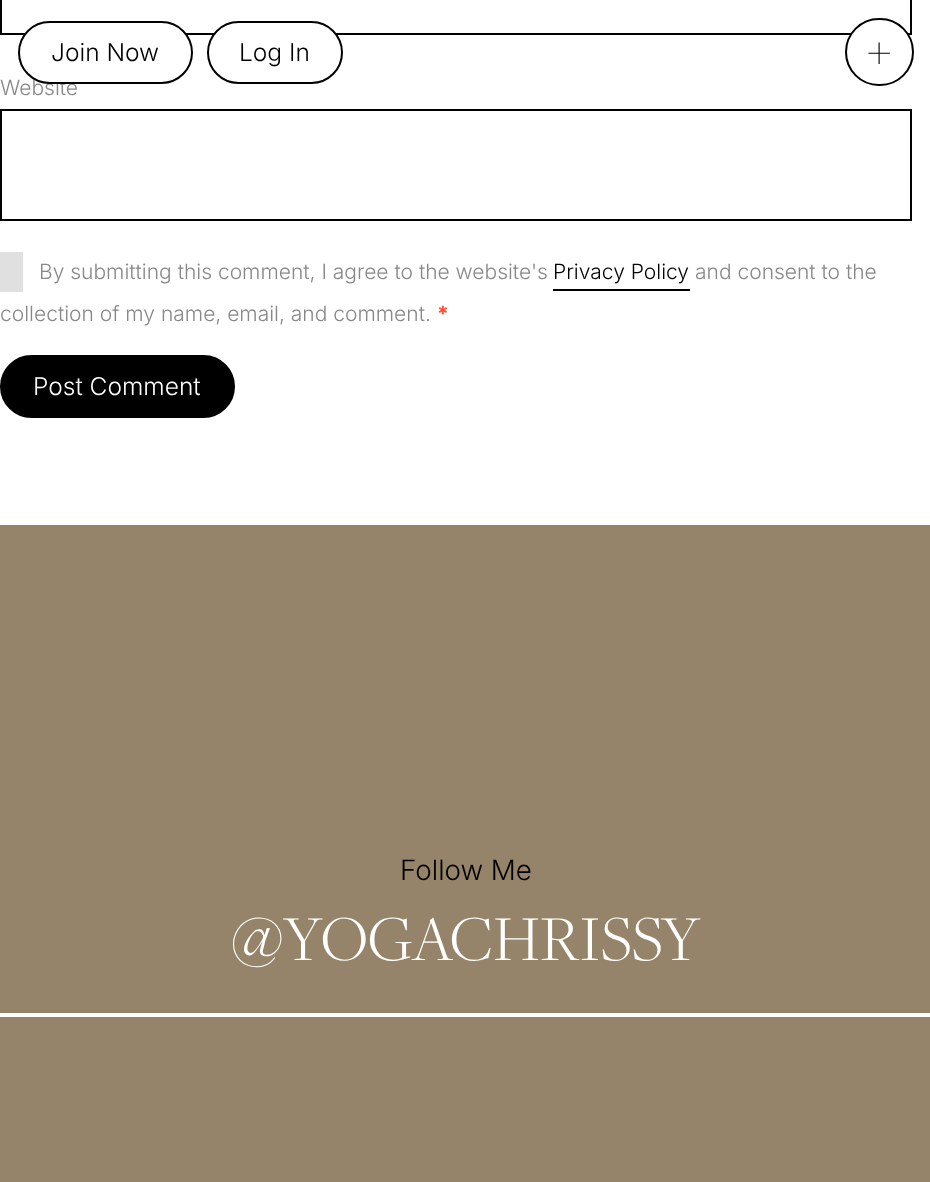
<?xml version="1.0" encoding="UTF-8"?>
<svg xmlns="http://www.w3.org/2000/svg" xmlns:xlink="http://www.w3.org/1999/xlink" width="930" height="1182">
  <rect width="100%" height="100%" fill="#ffffff" />
  <rect x="1" y="-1" width="910" height="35" fill="none" stroke="#000000" stroke-width="2" />
  <rect x="208" y="22" width="134" height="61" rx="30.5" fill="#ffffff" stroke="#000000" stroke-width="2" />
  <rect x="846" y="19" width="67" height="66" rx="33" fill="#ffffff" stroke="#000000" stroke-width="2" />
  <rect x="1" y="110" width="910" height="110" fill="none" stroke="#000000" stroke-width="2" />
  <rect y="252" width="23" height="40" fill="#e0e0e0" />
  <rect x="553" y="289" width="137" height="2" fill="#000000" />
  <rect x="1" y="356" width="233" height="61" rx="30.5" fill="#000000" stroke="#000000" stroke-width="2" />
  <rect y="525" width="930" height="657" fill="#958469" />
  <rect y="1013" width="930" height="4" fill="#ffffff" />
  <text x="239" y="61" style="font-family: Inter; font-size: 24.5px; font-weight: 300; fill: #000000">Log In</text>
  <text x="864" y="68" style="font-family: Inter; font-size: 52px; font-weight: 100; fill: #000000">+</text>
  <text x="0" y="95" style="font-family: Inter; font-size: 21px; font-weight: 300; fill: #888888">Website</text>
  <rect x="19" y="22" width="173" height="61" rx="30.5" fill="#ffffff" stroke="#000000" stroke-width="2" />
  <text x="51" y="61" style="font-family: Inter; font-size: 24.5px; font-weight: 300; fill: #000000">Join Now</text>
  <text x="39" y="279" style="font-family: Inter; font-size: 21px; font-weight: 300; fill: #888888">By submitting this comment, I agree to the website's</text>
  <text x="553" y="279" style="font-family: Inter; font-size: 21px; font-weight: 300; fill: #000000">Privacy Policy</text>
  <text x="695" y="279" style="font-family: Inter; font-size: 21px; font-weight: 300; fill: #888888">and consent to the</text>
  <text x="0" y="321" style="font-family: Inter; font-size: 21px; font-weight: 300; fill: #888888">collection of my name, email, and comment.</text>
  <text x="437" y="321" style="font-family: Inter; font-size: 21px; font-weight: bold; fill: #ff4b33">*</text>
  <text x="33" y="395" style="font-family: Inter; font-size: 24.5px; font-weight: 300; fill: #ffffff">Post Comment</text>
  <text x="400" y="880" style="font-family: 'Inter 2'; font-size: 28px; font-weight: 300; fill: #000000">Follow Me</text>
  <text x="231" y="960" style="font-family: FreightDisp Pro; font-size: 66.5px; font-weight: 300; fill: #ffffff">@YOGACHRISSY</text>
</svg>
